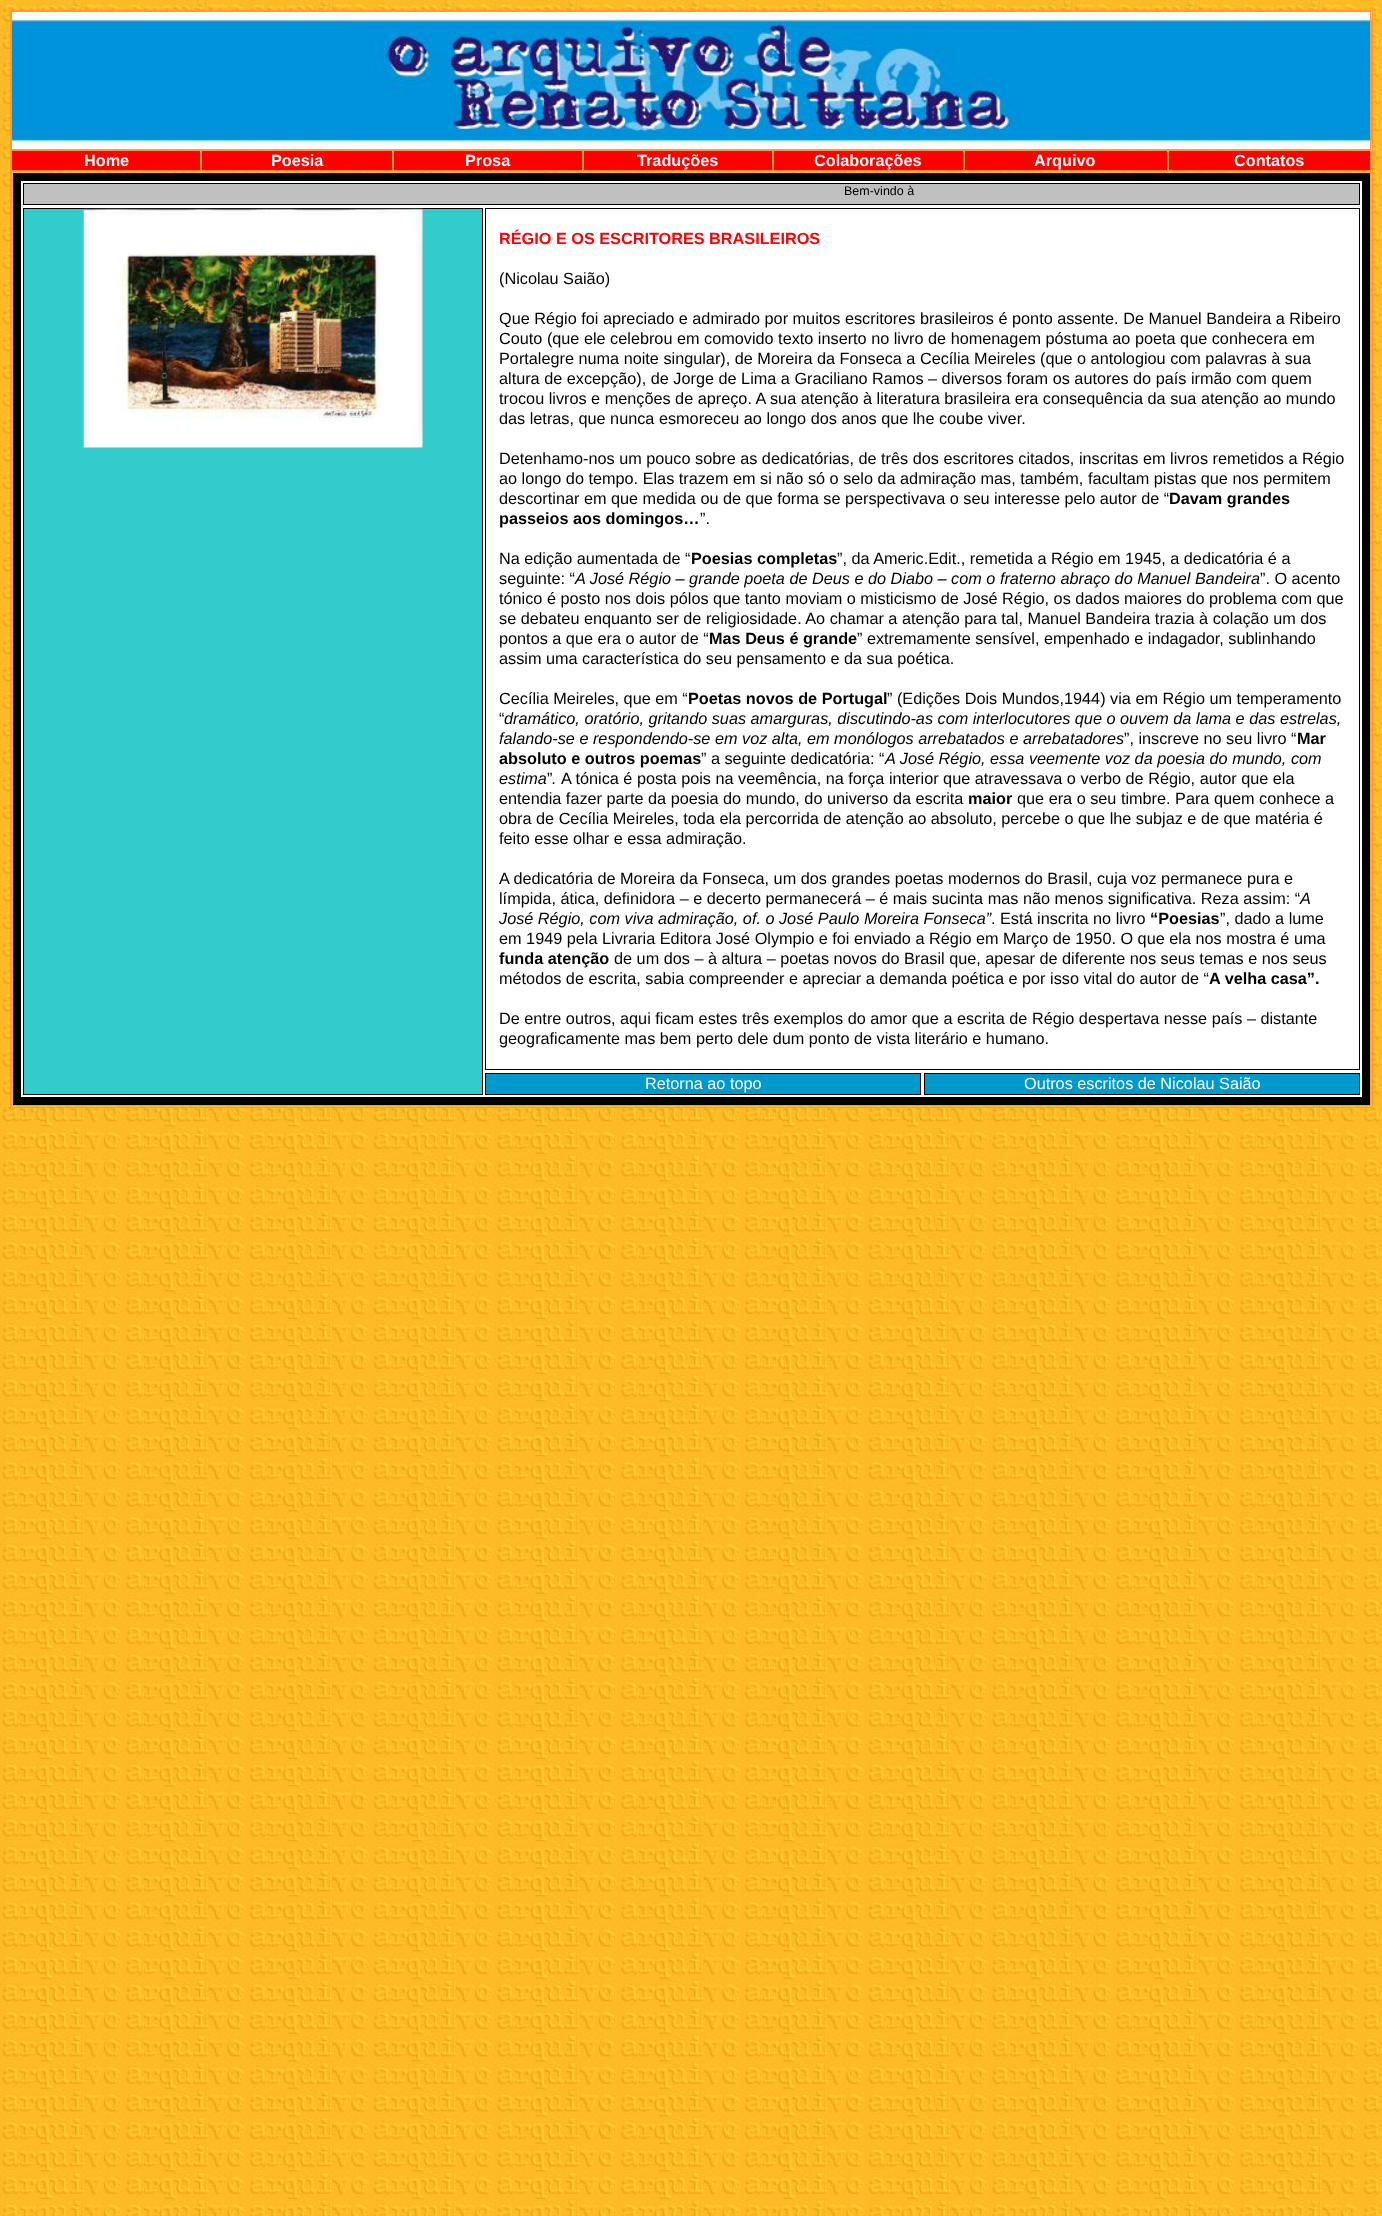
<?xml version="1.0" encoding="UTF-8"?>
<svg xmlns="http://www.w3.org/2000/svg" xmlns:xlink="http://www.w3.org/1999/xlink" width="1382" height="2216">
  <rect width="100%" height="100%" fill="#ffffff" />
  <image x="0" y="0" width="1382" height="2216" xlink:href="image1.png" />
  <rect x="10.5" y="10.5" width="1362" height="1097" fill="none" stroke="#ff9933" />
  <image x="12" y="11" width="1360" height="139" xlink:href="image2.png" />
  <rect x="11.5" y="11.5" width="1359" height="138" fill="none" stroke="#ff9933" />
  <image x="351" y="12" width="682" height="132" xlink:href="image3.png" />
  <rect x="11.5" y="150.5" width="189" height="20" fill="#ff0000" stroke="#ff9933" />
  <rect x="201.5" y="150.5" width="191" height="20" fill="#ff0000" stroke="#ff9933" />
  <rect x="393.5" y="150.5" width="189" height="20" fill="#ff0000" stroke="#ff9933" />
  <rect x="583.5" y="150.5" width="189" height="20" fill="#ff0000" stroke="#ff9933" />
  <rect x="773.5" y="150.5" width="190" height="20" fill="#ff0000" stroke="#ff9933" />
  <rect x="964.5" y="150.5" width="203" height="20" fill="#ff0000" stroke="#ff9933" />
  <rect x="1168.5" y="150.5" width="202" height="20" fill="#ff0000" stroke="#ff9933" />
  <rect x="11.5" y="171.5" width="1359" height="934" fill="none" stroke="#ff9933" />
  <rect x="17" y="177" width="1349" height="924" fill="#ffffff" stroke="#000000" stroke-width="8" />
  <rect x="23.5" y="183.5" width="1336" height="21" fill="#c0c0c0" stroke="#000000" />
  <rect x="23.5" y="208.5" width="459" height="886" fill="#33cccc" stroke="#000000" />
  <image x="83" y="208" width="340" height="240" xlink:href="image4.png" />
  <rect x="485.5" y="208.5" width="874" height="861" fill="none" stroke="#000000" />
  <rect x="485.5" y="1073.5" width="435" height="21" fill="#0099cc" stroke="#000000" />
  <rect x="924.5" y="1073.5" width="435" height="21" fill="#0099cc" stroke="#000000" />
  <text x="84" y="166" style="font-family: Liberation Sans; font-size: 16.25px; font-weight: bold; fill: #ffffff">Home</text>
  <text x="271" y="166" style="font-family: Liberation Sans; font-size: 16.25px; font-weight: bold; fill: #ffffff">Poesia</text>
  <text x="465" y="166" style="font-family: Liberation Sans; font-size: 16.25px; font-weight: bold; fill: #ffffff">Prosa</text>
  <text x="637" y="166" style="font-family: Liberation Sans; font-size: 16.25px; font-weight: bold; fill: #ffffff">Traduções</text>
  <text x="814" y="166" style="font-family: Liberation Sans; font-size: 16.25px; font-weight: bold; fill: #ffffff">Colaborações</text>
  <text x="1034" y="166" style="font-family: Liberation Sans; font-size: 16.25px; font-weight: bold; fill: #ffffff">Arquivo</text>
  <text x="1234" y="166" style="font-family: Liberation Sans; font-size: 16.25px; font-weight: bold; fill: #ffffff">Contatos</text>
  <text x="844" y="195" style="font-family: Liberation Sans; font-size: 12.5px; fill: #000000">Bem-vindo à</text>
  <text x="499" y="244" style="font-family: Liberation Sans; font-size: 16.25px; font-weight: bold; fill: #ff0000">RÉGIO E OS ESCRITORES BRASILEIROS</text>
  <text x="499" y="284" style="font-family: Liberation Sans; font-size: 16.25px; fill: #000000">(Nicolau Saião)</text>
  <text x="499" y="324" style="font-family: Liberation Sans; font-size: 16.25px; fill: #000000">Que Régio foi apreciado e admirado por muitos escritores brasileiros é ponto assente. De Manuel Bandeira a Ribeiro</text>
  <text x="499" y="344" style="font-family: Liberation Sans; font-size: 16.25px; fill: #000000">Couto (que ele celebrou em comovido texto inserto no livro de homenagem póstuma ao poeta que conhecera em</text>
  <text x="499" y="364" style="font-family: Liberation Sans; font-size: 16.25px; fill: #000000">Portalegre numa noite singular), de Moreira da Fonseca a Cecília Meireles (que o antologiou com palavras à sua</text>
  <text x="499" y="384" style="font-family: Liberation Sans; font-size: 16.25px; fill: #000000">altura de excepção), de Jorge de Lima a Graciliano Ramos – diversos foram os autores do país irmão com quem</text>
  <text x="499" y="404" style="font-family: Liberation Sans; font-size: 16.25px; fill: #000000">trocou livros e menções de apreço. A sua atenção à literatura brasileira era consequência da sua atenção ao mundo</text>
  <text x="499" y="424" style="font-family: Liberation Sans; font-size: 16.25px; fill: #000000">das letras, que nunca esmoreceu ao longo dos anos que lhe coube viver.</text>
  <text x="499" y="464" style="font-family: Liberation Sans; font-size: 16.25px; fill: #000000">Detenhamo-nos um pouco sobre as dedicatórias, de três dos escritores citados, inscritas em livros remetidos a Régio</text>
  <text x="499" y="484" style="font-family: Liberation Sans; font-size: 16.25px; fill: #000000">ao longo do tempo. Elas trazem em si não só o selo da admiração mas, também, facultam pistas que nos permitem</text>
  <text x="499" y="504" style="font-family: Liberation Sans; font-size: 16.25px; fill: #000000">descortinar em que medida ou de que forma se perspectivava o seu interesse pelo autor de “</text>
  <text x="1169" y="504" style="font-family: Liberation Sans; font-size: 16.25px; font-weight: bold; fill: #000000">Davam grandes</text>
  <text x="499" y="524" style="font-family: Liberation Sans; font-size: 16.25px; font-weight: bold; fill: #000000">passeios aos domingos…</text>
  <text x="700" y="524" style="font-family: Liberation Sans; font-size: 16.25px; fill: #000000">”.</text>
  <text x="499" y="564" style="font-family: Liberation Sans; font-size: 16.25px; fill: #000000">Na edição aumentada de “</text>
  <text x="691" y="564" style="font-family: Liberation Sans; font-size: 16.25px; font-weight: bold; fill: #000000">Poesias completas</text>
  <text x="837" y="564" style="font-family: Liberation Sans; font-size: 16.25px; fill: #000000">”, da Americ.Edit., remetida a Régio em 1945, a dedicatória é a</text>
  <text x="499" y="584" style="font-family: Liberation Sans; font-size: 16.25px; fill: #000000">seguinte: “</text>
  <text x="575" y="584" style="font-family: Liberation Sans; font-size: 16.25px; font-style: italic; fill: #000000">A José Régio – grande poeta de Deus e do Diabo – com o fraterno abraço do Manuel Bandeira</text>
  <text x="1260" y="584" style="font-family: Liberation Sans; font-size: 16.25px; fill: #000000">”. O acento</text>
  <text x="499" y="604" style="font-family: Liberation Sans; font-size: 16.25px; fill: #000000">tónico é posto nos dois pólos que tanto moviam o misticismo de José Régio, os dados maiores do problema com que</text>
  <text x="499" y="624" style="font-family: Liberation Sans; font-size: 16.25px; fill: #000000">se debateu enquanto ser de religiosidade. Ao chamar a atenção para tal, Manuel Bandeira trazia à colação um dos</text>
  <text x="499" y="644" style="font-family: Liberation Sans; font-size: 16.25px; fill: #000000">pontos a que era o autor de “</text>
  <text x="709" y="644" style="font-family: Liberation Sans; font-size: 16.25px; font-weight: bold; fill: #000000">Mas Deus é grande</text>
  <text x="857" y="644" style="font-family: Liberation Sans; font-size: 16.25px; fill: #000000">” extremamente sensível, empenhado e indagador, sublinhando</text>
  <text x="499" y="664" style="font-family: Liberation Sans; font-size: 16.25px; fill: #000000">assim uma característica do seu pensamento e da sua poética.</text>
  <text x="499" y="704" style="font-family: Liberation Sans; font-size: 16.25px; fill: #000000">Cecília Meireles, que em “</text>
  <text x="688" y="704" style="font-family: Liberation Sans; font-size: 16.25px; font-weight: bold; fill: #000000">Poetas novos de Portugal</text>
  <text x="887" y="704" style="font-family: Liberation Sans; font-size: 16.25px; fill: #000000">” (Edições Dois Mundos,1944) via em Régio um temperamento</text>
  <text x="499" y="724" style="font-family: Liberation Sans; font-size: 16.25px; fill: #000000">“</text>
  <text x="504" y="724" style="font-family: Liberation Sans; font-size: 16.25px; font-style: italic; fill: #000000">dramático, oratório, gritando suas amarguras, discutindo-as com interlocutores que o ouvem da lama e das estrelas,</text>
  <text x="499" y="744" style="font-family: Liberation Sans; font-size: 16.25px; font-style: italic; fill: #000000">falando-se e respondendo-se em voz alta, em monólogos arrebatados e arrebatadores</text>
  <text x="1124" y="744" style="font-family: Liberation Sans; font-size: 16.25px; fill: #000000">”, inscreve no seu livro “</text>
  <text x="1297" y="744" style="font-family: Liberation Sans; font-size: 16.25px; font-weight: bold; fill: #000000">Mar</text>
  <text x="499" y="764" style="font-family: Liberation Sans; font-size: 16.25px; font-weight: bold; fill: #000000">absoluto e outros poemas</text>
  <text x="701" y="764" style="font-family: Liberation Sans; font-size: 16.25px; fill: #000000">” a seguinte dedicatória: “</text>
  <text x="885" y="764" style="font-family: Liberation Sans; font-size: 16.25px; font-style: italic; fill: #000000">A José Régio, essa veemente voz da poesia do mundo, com</text>
  <text x="499" y="784" style="font-family: Liberation Sans; font-size: 16.25px; font-style: italic; fill: #000000">estima</text>
  <text x="547" y="784" style="font-family: Liberation Sans; font-size: 16.25px; fill: #000000">”</text>
  <text x="552" y="784" style="font-family: Liberation Sans; font-size: 16.25px; font-style: italic; fill: #000000">.</text>
  <text x="561" y="784" style="font-family: Liberation Sans; font-size: 16.25px; fill: #000000">A tónica é posta pois na veemência, na força interior que atravessava o verbo de Régio, autor que ela</text>
  <text x="499" y="804" style="font-family: Liberation Sans; font-size: 16.25px; fill: #000000">entendia fazer parte da poesia do mundo, do universo da escrita</text>
  <text x="968" y="804" style="font-family: Liberation Sans; font-size: 16.25px; font-weight: bold; fill: #000000">maior</text>
  <text x="1017" y="804" style="font-family: Liberation Sans; font-size: 16.25px; fill: #000000">que era o seu timbre. Para quem conhece a</text>
  <text x="499" y="824" style="font-family: Liberation Sans; font-size: 16.25px; fill: #000000">obra de Cecília Meireles, toda ela percorrida de atenção ao absoluto, percebe o que lhe subjaz e de que matéria é</text>
  <text x="499" y="844" style="font-family: Liberation Sans; font-size: 16.25px; fill: #000000">feito esse olhar e essa admiração.</text>
  <text x="499" y="884" style="font-family: Liberation Sans; font-size: 16.25px; fill: #000000">A dedicatória de Moreira da Fonseca, um dos grandes poetas modernos do Brasil, cuja voz permanece pura e</text>
  <text x="499" y="904" style="font-family: Liberation Sans; font-size: 16.25px; fill: #000000">límpida, ática, definidora – e decerto permanecerá – é mais sucinta mas não menos significativa. Reza assim: “</text>
  <text x="1300" y="904" style="font-family: Liberation Sans; font-size: 16.25px; font-style: italic; fill: #000000">A</text>
  <text x="499" y="924" style="font-family: Liberation Sans; font-size: 16.25px; font-style: italic; fill: #000000">José Régio, com viva admiração, of. o José Paulo Moreira Fonseca”</text>
  <text x="991" y="924" style="font-family: Liberation Sans; font-size: 16.25px; fill: #000000">. Está inscrita no livro</text>
  <text x="1150" y="924" style="font-family: Liberation Sans; font-size: 16.25px; font-weight: bold; fill: #000000">“Poesias</text>
  <text x="1220" y="924" style="font-family: Liberation Sans; font-size: 16.25px; fill: #000000">”, dado a lume</text>
  <text x="499" y="944" style="font-family: Liberation Sans; font-size: 16.25px; fill: #000000">em 1949 pela Livraria Editora José Olympio e foi enviado a Régio em Março de 1950. O que ela nos mostra é uma</text>
  <text x="499" y="964" style="font-family: Liberation Sans; font-size: 16.25px; font-weight: bold; fill: #000000">funda atenção</text>
  <text x="614" y="964" style="font-family: Liberation Sans; font-size: 16.25px; fill: #000000">de um dos – à altura – poetas novos do Brasil que, apesar de diferente nos seus temas e nos seus</text>
  <text x="499" y="984" style="font-family: Liberation Sans; font-size: 16.25px; fill: #000000">métodos de escrita, sabia compreender e apreciar a demanda poética e por isso vital do autor de “</text>
  <text x="1209" y="984" style="font-family: Liberation Sans; font-size: 16.25px; font-weight: bold; fill: #000000">A velha casa”.</text>
  <text x="499" y="1024" style="font-family: Liberation Sans; font-size: 16.25px; fill: #000000">De entre outros, aqui ficam estes três exemplos do amor que a escrita de Régio despertava nesse país – distante</text>
  <text x="499" y="1044" style="font-family: Liberation Sans; font-size: 16.25px; fill: #000000">geograficamente mas bem perto dele dum ponto de vista literário e humano.</text>
  <text x="645" y="1089" style="font-family: Liberation Sans; font-size: 16.25px; fill: #ffffff">Retorna ao topo</text>
  <text x="1024" y="1089" style="font-family: Liberation Sans; font-size: 16.25px; fill: #ffffff">Outros escritos de Nicolau Saião</text>
</svg>
